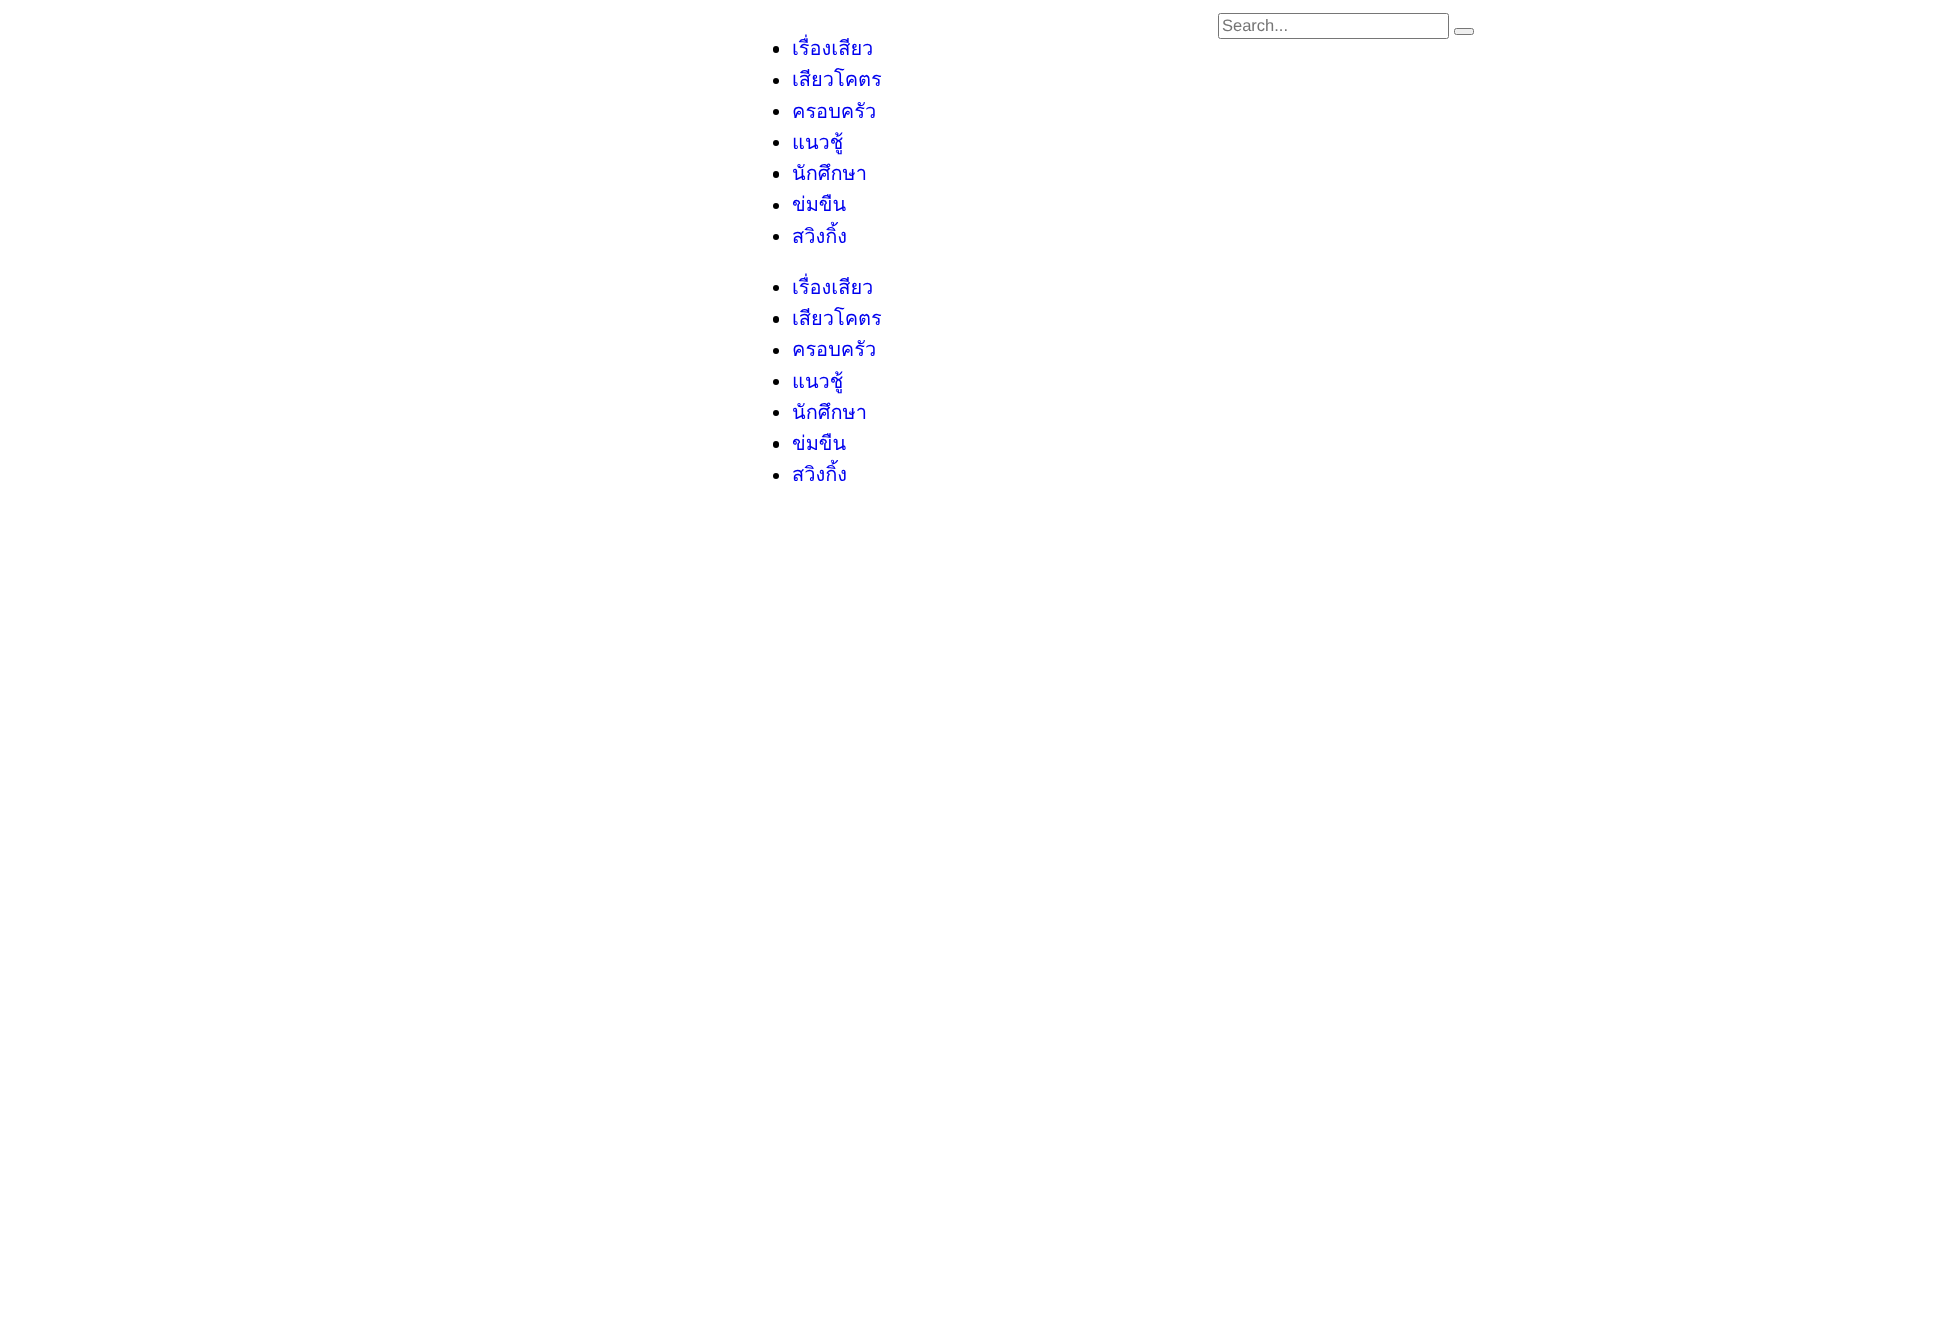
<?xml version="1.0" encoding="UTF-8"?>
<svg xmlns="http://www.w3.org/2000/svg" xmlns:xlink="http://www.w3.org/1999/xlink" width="1935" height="1319">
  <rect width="100%" height="100%" fill="#ffffff" />
  <rect x="1218.5" y="13.5" width="230" height="25" rx="2" fill="none" stroke="#767676" />
  <rect x="1454.5" y="28.5" width="19" height="6" rx="2" fill="#efefef" stroke="#767676" />
  <rect x="773" y="46" width="6" height="7" rx="3" fill="#000000" />
  <circle cx="776" cy="81" r="3" fill="#000000" />
  <circle cx="776" cy="112" r="3" fill="#000000" />
  <circle cx="776" cy="143" r="3" fill="#000000" />
  <rect x="773" y="171" width="6" height="7" rx="3" fill="#000000" />
  <circle cx="776" cy="206" r="3" fill="#000000" />
  <circle cx="776" cy="237" r="3" fill="#000000" />
  <circle cx="776" cy="288" r="3" fill="#000000" />
  <rect x="773" y="316" width="6" height="7" rx="3" fill="#000000" />
  <circle cx="776" cy="351" r="3" fill="#000000" />
  <circle cx="776" cy="382" r="3" fill="#000000" />
  <circle cx="776" cy="413" r="3" fill="#000000" />
  <rect x="773" y="441" width="6" height="7" rx="3" fill="#000000" />
  <circle cx="776" cy="476" r="3" fill="#000000" />
  <text x="1222" y="31" style="font-family: Liberation Sans; font-size: 16.5px; fill: #757575">Search...</text>
  <text x="792" y="55" style="font-family: Loma; font-size: 20px; fill: #0000ee">เรื่องเสียว</text>
  <text x="792" y="86" style="font-family: Loma; font-size: 20px; fill: #0000ee">เสียวโคตร</text>
  <text x="792" y="118" style="font-family: Loma; font-size: 20px; fill: #0000ee">ครอบครัว</text>
  <text x="792" y="149" style="font-family: Loma; font-size: 20px; fill: #0000ee">แนวชู้</text>
  <text x="792" y="180" style="font-family: Loma; font-size: 20px; fill: #0000ee">นักศึกษา</text>
  <text x="792" y="211" style="font-family: Loma; font-size: 20px; fill: #0000ee">ข่มขืน</text>
  <text x="792" y="243" style="font-family: Loma; font-size: 20px; fill: #0000ee">สวิงกิ้ง</text>
  <text x="792" y="294" style="font-family: Loma; font-size: 20px; fill: #0000ee">เรื่องเสียว</text>
  <text x="792" y="325" style="font-family: Loma; font-size: 20px; fill: #0000ee">เสียวโคตร</text>
  <text x="792" y="356" style="font-family: Loma; font-size: 20px; fill: #0000ee">ครอบครัว</text>
  <text x="792" y="388" style="font-family: Loma; font-size: 20px; fill: #0000ee">แนวชู้</text>
  <text x="792" y="419" style="font-family: Loma; font-size: 20px; fill: #0000ee">นักศึกษา</text>
  <text x="792" y="450" style="font-family: Loma; font-size: 20px; fill: #0000ee">ข่มขืน</text>
  <text x="792" y="481" style="font-family: Loma; font-size: 20px; fill: #0000ee">สวิงกิ้ง</text>
</svg>
